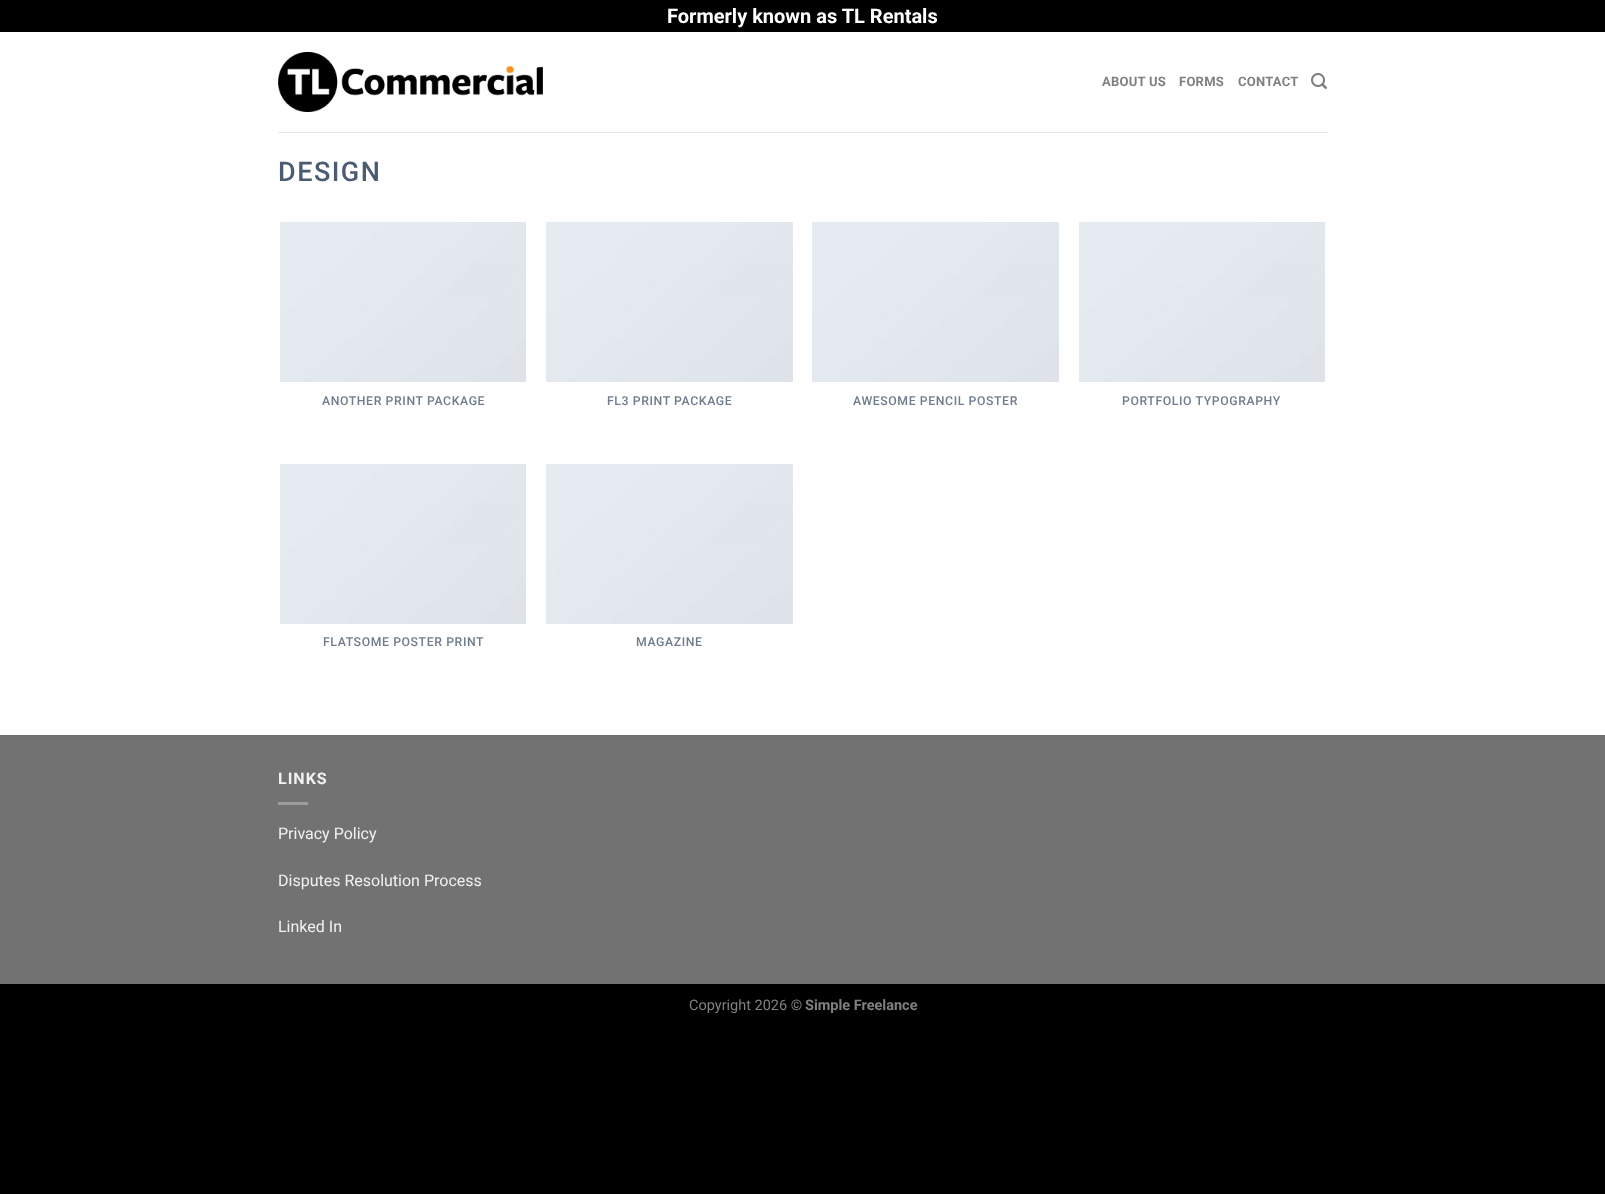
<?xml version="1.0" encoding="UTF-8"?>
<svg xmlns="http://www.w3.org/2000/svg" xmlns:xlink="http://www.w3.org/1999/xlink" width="1605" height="1194">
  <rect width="100%" height="100%" fill="#000000" />
  <rect y="32" width="1605" height="703" fill="#ffffff" />
  <image x="278" y="52" width="265" height="60" xlink:href="image1.png" />
  <image x="1311" y="73" width="16" height="16" xlink:href="image2.png" />
  <rect x="278" y="132" width="1050" height="1" fill="#e6e6e6" />
  <image x="280" y="222" width="246" height="160" xlink:href="image3.png" />
  <image x="546" y="222" width="247" height="160" xlink:href="image4.png" />
  <image x="812" y="222" width="247" height="160" xlink:href="image4.png" />
  <image x="1079" y="222" width="246" height="160" xlink:href="image3.png" />
  <image x="280" y="464" width="246" height="160" xlink:href="image3.png" />
  <image x="546" y="464" width="247" height="160" xlink:href="image4.png" />
  <rect y="736" width="1605" height="248" fill="#727272" />
  <rect y="735" width="1605" height="1" fill="#6c6c6c" />
  <rect x="278" y="802" width="30" height="3" fill="#9c9c9c" />
  <text x="667" y="23" style="font-family: Roboto; font-size: 20px; font-weight: bold; fill: #ffffff">Formerly known as TL Rentals</text>
  <text x="1102" y="86" style="font-family: Roboto; font-size: 13px; font-weight: bold; letter-spacing: 0.25px; fill: #808080">ABOUT US</text>
  <text x="1179" y="86" style="font-family: Roboto; font-size: 13px; font-weight: bold; letter-spacing: 0.25px; fill: #808080">FORMS</text>
  <text x="1238" y="86" style="font-family: Roboto; font-size: 13px; font-weight: bold; letter-spacing: 0.25px; fill: #808080">CONTACT</text>
  <text x="278" y="181" style="font-family: Roboto; font-size: 27px; font-weight: 500; letter-spacing: 1.5px; fill: #4b5b71">DESIGN</text>
  <text x="322" y="405" style="font-family: Roboto; font-size: 12.25px; font-weight: 500; letter-spacing: 0.6px; fill: #6f7c8d">ANOTHER PRINT PACKAGE</text>
  <text x="607" y="405" style="font-family: Roboto; font-size: 12.25px; font-weight: 500; letter-spacing: 0.6px; fill: #6f7c8d">FL3 PRINT PACKAGE</text>
  <text x="853" y="405" style="font-family: Roboto; font-size: 12.25px; font-weight: 500; letter-spacing: 0.6px; fill: #6f7c8d">AWESOME PENCIL POSTER</text>
  <text x="1122" y="405" style="font-family: Roboto; font-size: 12.25px; font-weight: 500; letter-spacing: 0.6px; fill: #6f7c8d">PORTFOLIO TYPOGRAPHY</text>
  <text x="323" y="646" style="font-family: Roboto; font-size: 12.25px; font-weight: 500; letter-spacing: 0.6px; fill: #6f7c8d">FLATSOME POSTER PRINT</text>
  <text x="636" y="646" style="font-family: Roboto; font-size: 12.25px; font-weight: 500; letter-spacing: 0.6px; fill: #6f7c8d">MAGAZINE</text>
  <text x="278" y="784" style="font-family: Roboto; font-size: 16px; font-weight: bold; letter-spacing: 1px; fill: #f1f1f1">LINKS</text>
  <text x="278" y="839" style="font-family: Roboto; font-size: 16px; fill: #f1f1f1">Privacy Policy</text>
  <text x="278" y="886" style="font-family: Roboto; font-size: 16px; fill: #f1f1f1">Disputes Resolution Process</text>
  <text x="278" y="932" style="font-family: Roboto; font-size: 16px; fill: #f1f1f1">Linked In</text>
  <text x="689" y="1010" style="font-family: Roboto; font-size: 14.5px; fill: #808080">Copyright 2026 ©</text>
  <text x="805" y="1010" style="font-family: Roboto; font-size: 14.5px; font-weight: bold; fill: #808080">Simple Freelance</text>
</svg>
